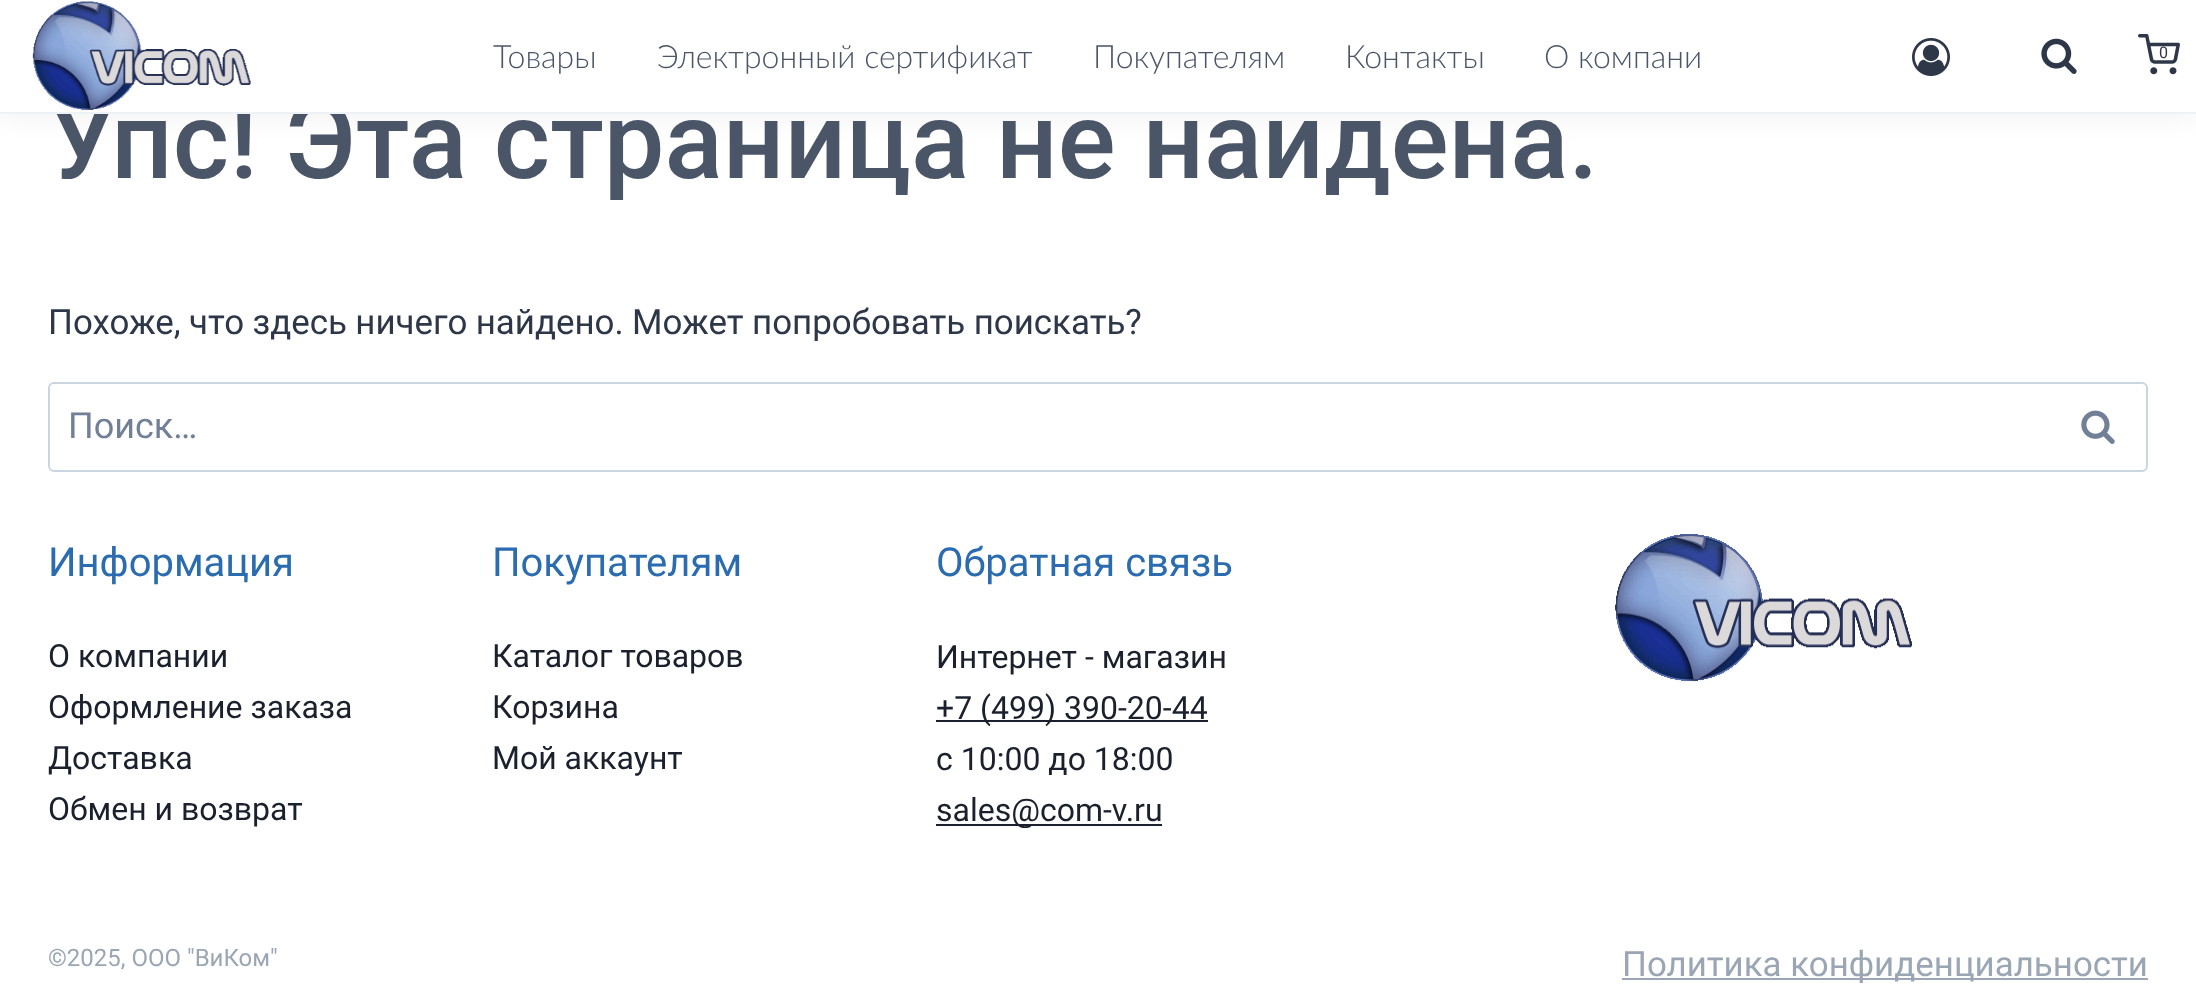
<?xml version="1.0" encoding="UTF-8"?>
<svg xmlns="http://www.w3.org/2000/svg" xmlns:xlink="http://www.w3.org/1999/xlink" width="2196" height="1003">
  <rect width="100%" height="100%" fill="#ffffff" />
  <rect y="4" width="2196" height="114" fill="#000000" fill-opacity="0.05" filter="blur(13px)" />
  <rect x="49" y="383" width="2098" height="88" rx="5" fill="none" stroke="#cbd5e0" stroke-width="2" />
  <image x="2081" y="410" width="34" height="34" xlink:href="image5.png" />
  <rect x="936" y="720" width="272" height="2" fill="#1a202c" />
  <rect x="936" y="824" width="226" height="2" fill="#1a202c" />
  <image x="1615" y="534" width="297" height="148" xlink:href="image6.png" />
  <rect x="1622" y="978" width="526" height="2" fill="#9ca6b6" />
  <text x="48" y="178" style="font-family: Roboto; font-size: 108px; font-weight: 500; fill: #4a5568">Упс! Эта страница не найдена.</text>
  <rect width="2196" height="112" fill="#ffffff" />
  <image x="2041" y="38" width="36" height="36" xlink:href="image3.png" />
  <text x="1544" y="68" style="font-family: Lato; font-size: 32px; font-weight: 300; fill: #4a5568">О компани</text>
  <text x="1345" y="68" style="font-family: Lato; font-size: 32px; font-weight: 300; fill: #4a5568">Контакты</text>
  <text x="1093" y="68" style="font-family: Lato; font-size: 32px; font-weight: 300; fill: #4a5568">Покупателям</text>
  <text x="657" y="68" style="font-family: Lato; font-size: 32px; font-weight: 300; fill: #4a5568">Электронный сертификат</text>
  <text x="493" y="68" style="font-family: Lato; font-size: 32px; font-weight: 300; fill: #4a5568">Товары</text>
  <text x="2159" y="58" style="font-family: Roboto; font-size: 16px; fill: #2d3748">0</text>
  <image x="2138" y="34" width="42" height="41" xlink:href="image4.png" />
  <image x="1912" y="38" width="38" height="38" xlink:href="image2.png" />
  <image x="32" y="1" width="219" height="109" xlink:href="image1.png" />
  <rect y="112" width="2196" height="2" fill="#edf2f7" />
  <text x="48" y="334" word-spacing="-0.25" style="font-family: Roboto; font-size: 34.9px; fill: #2d3748">Похоже, что здесь ничего найдено. Может попробовать поискать?</text>
  <text x="68" y="438" style="font-family: Roboto; font-size: 36px; fill: #718096">Поиск…</text>
  <text x="48" y="576" style="font-family: Roboto; font-size: 40px; fill: #2b6cb0">Информация</text>
  <text x="48" y="667" style="font-family: Roboto; font-size: 32px; fill: #1a202c">О компании</text>
  <text x="48" y="718" style="font-family: Roboto; font-size: 32px; fill: #1a202c">Оформление заказа</text>
  <text x="48" y="769" style="font-family: Roboto; font-size: 32px; fill: #1a202c">Доставка</text>
  <text x="48" y="820" style="font-family: Roboto; font-size: 32px; fill: #1a202c">Обмен и возврат</text>
  <text x="492" y="576" style="font-family: Roboto; font-size: 40px; fill: #2b6cb0">Покупателям</text>
  <text x="492" y="667" style="font-family: Roboto; font-size: 32px; fill: #1a202c">Каталог товаров</text>
  <text x="492" y="718" style="font-family: Roboto; font-size: 32px; fill: #1a202c">Корзина</text>
  <text x="492" y="769" style="font-family: Roboto; font-size: 32px; fill: #1a202c">Мой аккаунт</text>
  <text x="936" y="576" style="font-family: Roboto; font-size: 40px; fill: #2b6cb0">Обратная связь</text>
  <text x="936" y="668" style="font-family: Roboto; font-size: 32px; fill: #1a202c">Интернет - магазин</text>
  <text x="936" y="719" style="font-family: Roboto; font-size: 32px; fill: #1a202c">+7 (499) 390-20-44</text>
  <text x="936" y="770" style="font-family: Roboto; font-size: 32px; fill: #1a202c">с 10:00 до 18:00</text>
  <text x="936" y="821" style="font-family: Roboto; font-size: 32px; fill: #1a202c">sales@com-v.ru</text>
  <text x="48" y="966" style="font-family: Roboto; font-size: 24px; fill: #9ba6b5">©2025, ООО "ВиКом"</text>
  <text x="1622" y="976" style="font-family: Roboto; font-size: 34.9px; fill: #9ba6b5">Политика конфиденциальности</text>
</svg>
